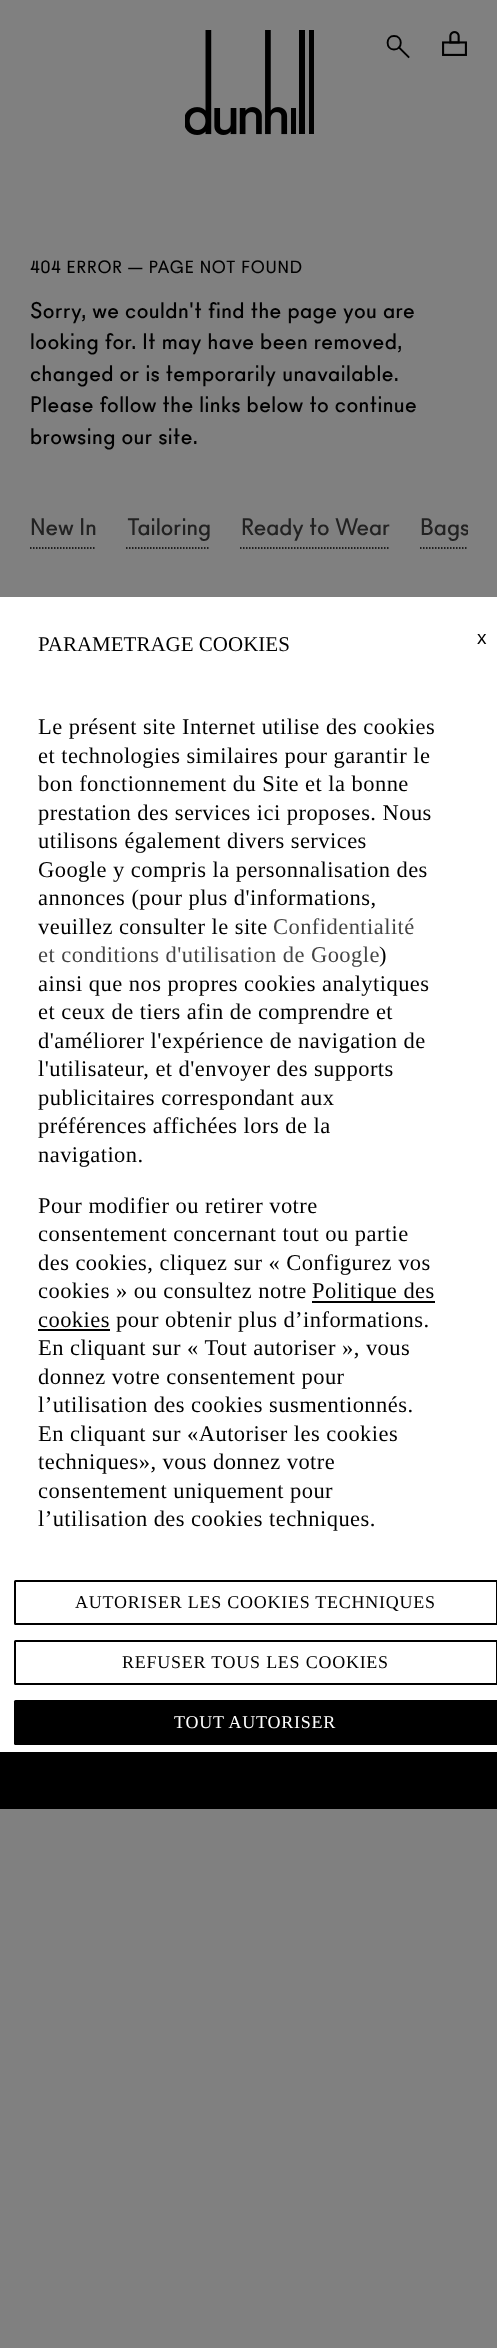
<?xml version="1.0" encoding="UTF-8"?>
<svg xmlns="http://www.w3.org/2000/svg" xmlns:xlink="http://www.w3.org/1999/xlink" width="497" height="2348">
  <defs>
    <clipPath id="clip1"><rect x="30" y="515" width="438" height="34" /></clipPath>
  </defs>
  <rect width="100%" height="100%" fill="#808080" />
  <image x="185" y="30" width="129" height="105" xlink:href="image1.png" />
  <path d="M 394 49.5 c 9 0 9 -13.5 0 -13.5 c -8.5 0 -8.5 13.5 0 13.5 z" fill="none" stroke="#000000" stroke-width="1.9" />
  <path d="M 399 47.5 l 9.5 9.5" fill="none" stroke="#000000" stroke-width="1.9" stroke-linecap="square" />
  <image x="442" y="31" width="25" height="25" xlink:href="image2.png" />
  <path d="M 30 548 h 66" fill="none" stroke="#000000" stroke-width="1.5" stroke-dasharray="1.5 1.5" />
  <path d="M 126 548 h 84" fill="none" stroke="#000000" stroke-width="1.5" stroke-dasharray="1.5 1.5" />
  <path d="M 240 548 h 150" fill="none" stroke="#000000" stroke-width="1.5" stroke-dasharray="1.5 1.5" />
  <g clip-path="url(#clip1)">
    <path d="M 420 548 h 49.5" fill="none" stroke="#000000" stroke-width="1.5" stroke-dasharray="1.5 1.5" />
  </g>
  <rect y="1752" width="497" height="57" fill="#000000" />
  <rect y="597" width="497" height="1155" fill="#ffffff" />
  <rect x="312" y="1301" width="123" height="2" fill="#000000" />
  <rect x="38" y="1329" width="72" height="2" fill="#000000" />
  <rect x="15" y="1581" width="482" height="43" rx="0.5" fill="none" stroke="#000000" stroke-width="2" />
  <rect x="15" y="1641" width="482" height="43" rx="0.5" fill="none" stroke="#000000" stroke-width="2" />
  <rect x="14" y="1700" width="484" height="45" rx="1.5" fill="#000000" />
  <text x="30" y="273" style="font-family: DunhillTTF; font-size: 16.5px; letter-spacing: 0.75px; fill: #000000">404 ERROR — PAGE NOT FOUND</text>
  <text x="30" y="318" style="font-family: DunhillTTF; font-size: 21px; letter-spacing: 0.45px; fill: #000000">Sorry, we couldn't find the page you are</text>
  <text x="30" y="349" style="font-family: DunhillTTF; font-size: 21px; letter-spacing: 0.45px; fill: #000000">looking for. It may have been removed,</text>
  <text x="30" y="381" style="font-family: DunhillTTF; font-size: 21px; letter-spacing: 0.45px; fill: #000000">changed or is temporarily unavailable.</text>
  <text x="30" y="412" style="font-family: DunhillTTF; font-size: 21px; letter-spacing: 0.45px; fill: #000000">Please follow the links below to continue</text>
  <text x="30" y="444" style="font-family: DunhillTTF; font-size: 21px; letter-spacing: 0.45px; fill: #000000">browsing our site.</text>
  <text x="30" y="535" style="font-family: DunhillTTF; font-size: 22.5px; fill: #222222">New In</text>
  <text x="127" y="535" style="font-family: DunhillTTF; font-size: 22.5px; fill: #222222">Tailoring</text>
  <text x="241" y="535" style="font-family: DunhillTTF; font-size: 22.5px; fill: #222222">Ready to Wear</text>
  <g clip-path="url(#clip1)">
    <text x="420" y="535" style="font-family: DunhillTTF; font-size: 22.5px; fill: #222222">Bags</text>
  </g>
  <text x="38" y="651" style="font-family: Liberation Serif; font-size: 21px; fill: #000000">PARAMETRAGE COOKIES</text>
  <text x="38" y="734" style="font-family: Liberation Serif; font-size: 22.5px; letter-spacing: 0.45px; fill: #000000">Le présent site Internet utilise des cookies</text>
  <text x="38" y="763" style="font-family: Liberation Serif; font-size: 22.5px; letter-spacing: 0.45px; fill: #000000">et technologies similaires pour garantir le</text>
  <text x="38" y="791" style="font-family: Liberation Serif; font-size: 22.5px; letter-spacing: 0.45px; fill: #000000">bon fonctionnement du Site et la bonne</text>
  <text x="38" y="820" style="font-family: Liberation Serif; font-size: 22.5px; letter-spacing: 0.45px; fill: #000000">prestation des services ici proposes. Nous</text>
  <text x="38" y="848" style="font-family: Liberation Serif; font-size: 22.5px; letter-spacing: 0.45px; fill: #000000">utilisons également divers services</text>
  <text x="38" y="877" style="font-family: Liberation Serif; font-size: 22.5px; letter-spacing: 0.45px; fill: #000000">Google y compris la personnalisation des</text>
  <text x="38" y="905" style="font-family: Liberation Serif; font-size: 22.5px; letter-spacing: 0.45px; fill: #000000">annonces (pour plus d'informations,</text>
  <text x="38" y="934" style="font-family: Liberation Serif; font-size: 22.5px; letter-spacing: 0.45px; fill: #000000">veuillez consulter le site</text>
  <text x="273" y="934" style="font-family: Liberation Serif; font-size: 22.5px; letter-spacing: 0.45px; fill: #444444">Confidentialité</text>
  <text x="38" y="962" style="font-family: Liberation Serif; font-size: 22.5px; letter-spacing: 0.45px; fill: #444444">et conditions d'utilisation de Google</text>
  <text x="379" y="962" style="font-family: Liberation Serif; font-size: 22.5px; letter-spacing: 0.45px; fill: #000000">)</text>
  <text x="38" y="991" style="font-family: Liberation Serif; font-size: 22.5px; letter-spacing: 0.45px; fill: #000000">ainsi que nos propres cookies analytiques</text>
  <text x="38" y="1019" style="font-family: Liberation Serif; font-size: 22.5px; letter-spacing: 0.45px; fill: #000000">et ceux de tiers afin de comprendre et</text>
  <text x="38" y="1048" style="font-family: Liberation Serif; font-size: 22.5px; letter-spacing: 0.45px; fill: #000000">d'améliorer l'expérience de navigation de</text>
  <text x="38" y="1076" style="font-family: Liberation Serif; font-size: 22.5px; letter-spacing: 0.45px; fill: #000000">l'utilisateur, et d'envoyer des supports</text>
  <text x="38" y="1105" style="font-family: Liberation Serif; font-size: 22.5px; letter-spacing: 0.45px; fill: #000000">publicitaires correspondant aux</text>
  <text x="38" y="1133" style="font-family: Liberation Serif; font-size: 22.5px; letter-spacing: 0.45px; fill: #000000">préférences affichées lors de la</text>
  <text x="38" y="1162" style="font-family: Liberation Serif; font-size: 22.5px; letter-spacing: 0.45px; fill: #000000">navigation.</text>
  <text x="38" y="1213" style="font-family: Liberation Serif; font-size: 22.5px; letter-spacing: 0.45px; fill: #000000">Pour modifier ou retirer votre</text>
  <text x="38" y="1241" style="font-family: Liberation Serif; font-size: 22.5px; letter-spacing: 0.45px; fill: #000000">consentement concernant tout ou partie</text>
  <text x="38" y="1270" style="font-family: Liberation Serif; font-size: 22.5px; letter-spacing: 0.45px; fill: #000000">des cookies, cliquez sur « Configurez vos</text>
  <text x="38" y="1298" style="font-family: Liberation Serif; font-size: 22.5px; letter-spacing: 0.45px; fill: #000000">cookies » ou consultez notre</text>
  <text x="312" y="1298" style="font-family: Liberation Serif; font-size: 22.5px; letter-spacing: 0.45px; fill: #000000">Politique des</text>
  <text x="38" y="1327" style="font-family: Liberation Serif; font-size: 22.5px; letter-spacing: 0.45px; fill: #000000">cookies pour obtenir plus d’informations.</text>
  <text x="38" y="1355" style="font-family: Liberation Serif; font-size: 22.5px; letter-spacing: 0.45px; fill: #000000">En cliquant sur « Tout autoriser », vous</text>
  <text x="38" y="1384" style="font-family: Liberation Serif; font-size: 22.5px; letter-spacing: 0.45px; fill: #000000">donnez votre consentement pour</text>
  <text x="38" y="1412" style="font-family: Liberation Serif; font-size: 22.5px; letter-spacing: 0.45px; fill: #000000">l’utilisation des cookies susmentionnés.</text>
  <text x="38" y="1441" style="font-family: Liberation Serif; font-size: 22.5px; letter-spacing: 0.45px; fill: #000000">En cliquant sur «Autoriser les cookies</text>
  <text x="38" y="1469" style="font-family: Liberation Serif; font-size: 22.5px; letter-spacing: 0.45px; fill: #000000">techniques», vous donnez votre</text>
  <text x="38" y="1498" style="font-family: Liberation Serif; font-size: 22.5px; letter-spacing: 0.45px; fill: #000000">consentement uniquement pour</text>
  <text x="38" y="1526" style="font-family: Liberation Serif; font-size: 22.5px; letter-spacing: 0.45px; fill: #000000">l’utilisation des cookies techniques.</text>
  <text x="477" y="644" style="font-family: Liberation Sans; font-size: 19px; fill: #000000">x</text>
  <text x="75" y="1608" style="font-family: Liberation Serif; font-size: 18px; letter-spacing: 0.75px; fill: #000000">AUTORISER LES COOKIES TECHNIQUES</text>
  <text x="122" y="1668" style="font-family: Liberation Serif; font-size: 18px; letter-spacing: 0.75px; fill: #000000">REFUSER TOUS LES COOKIES</text>
  <text x="174" y="1728" style="font-family: Liberation Serif; font-size: 18px; letter-spacing: 0.75px; fill: #ffffff">TOUT AUTORISER</text>
</svg>
